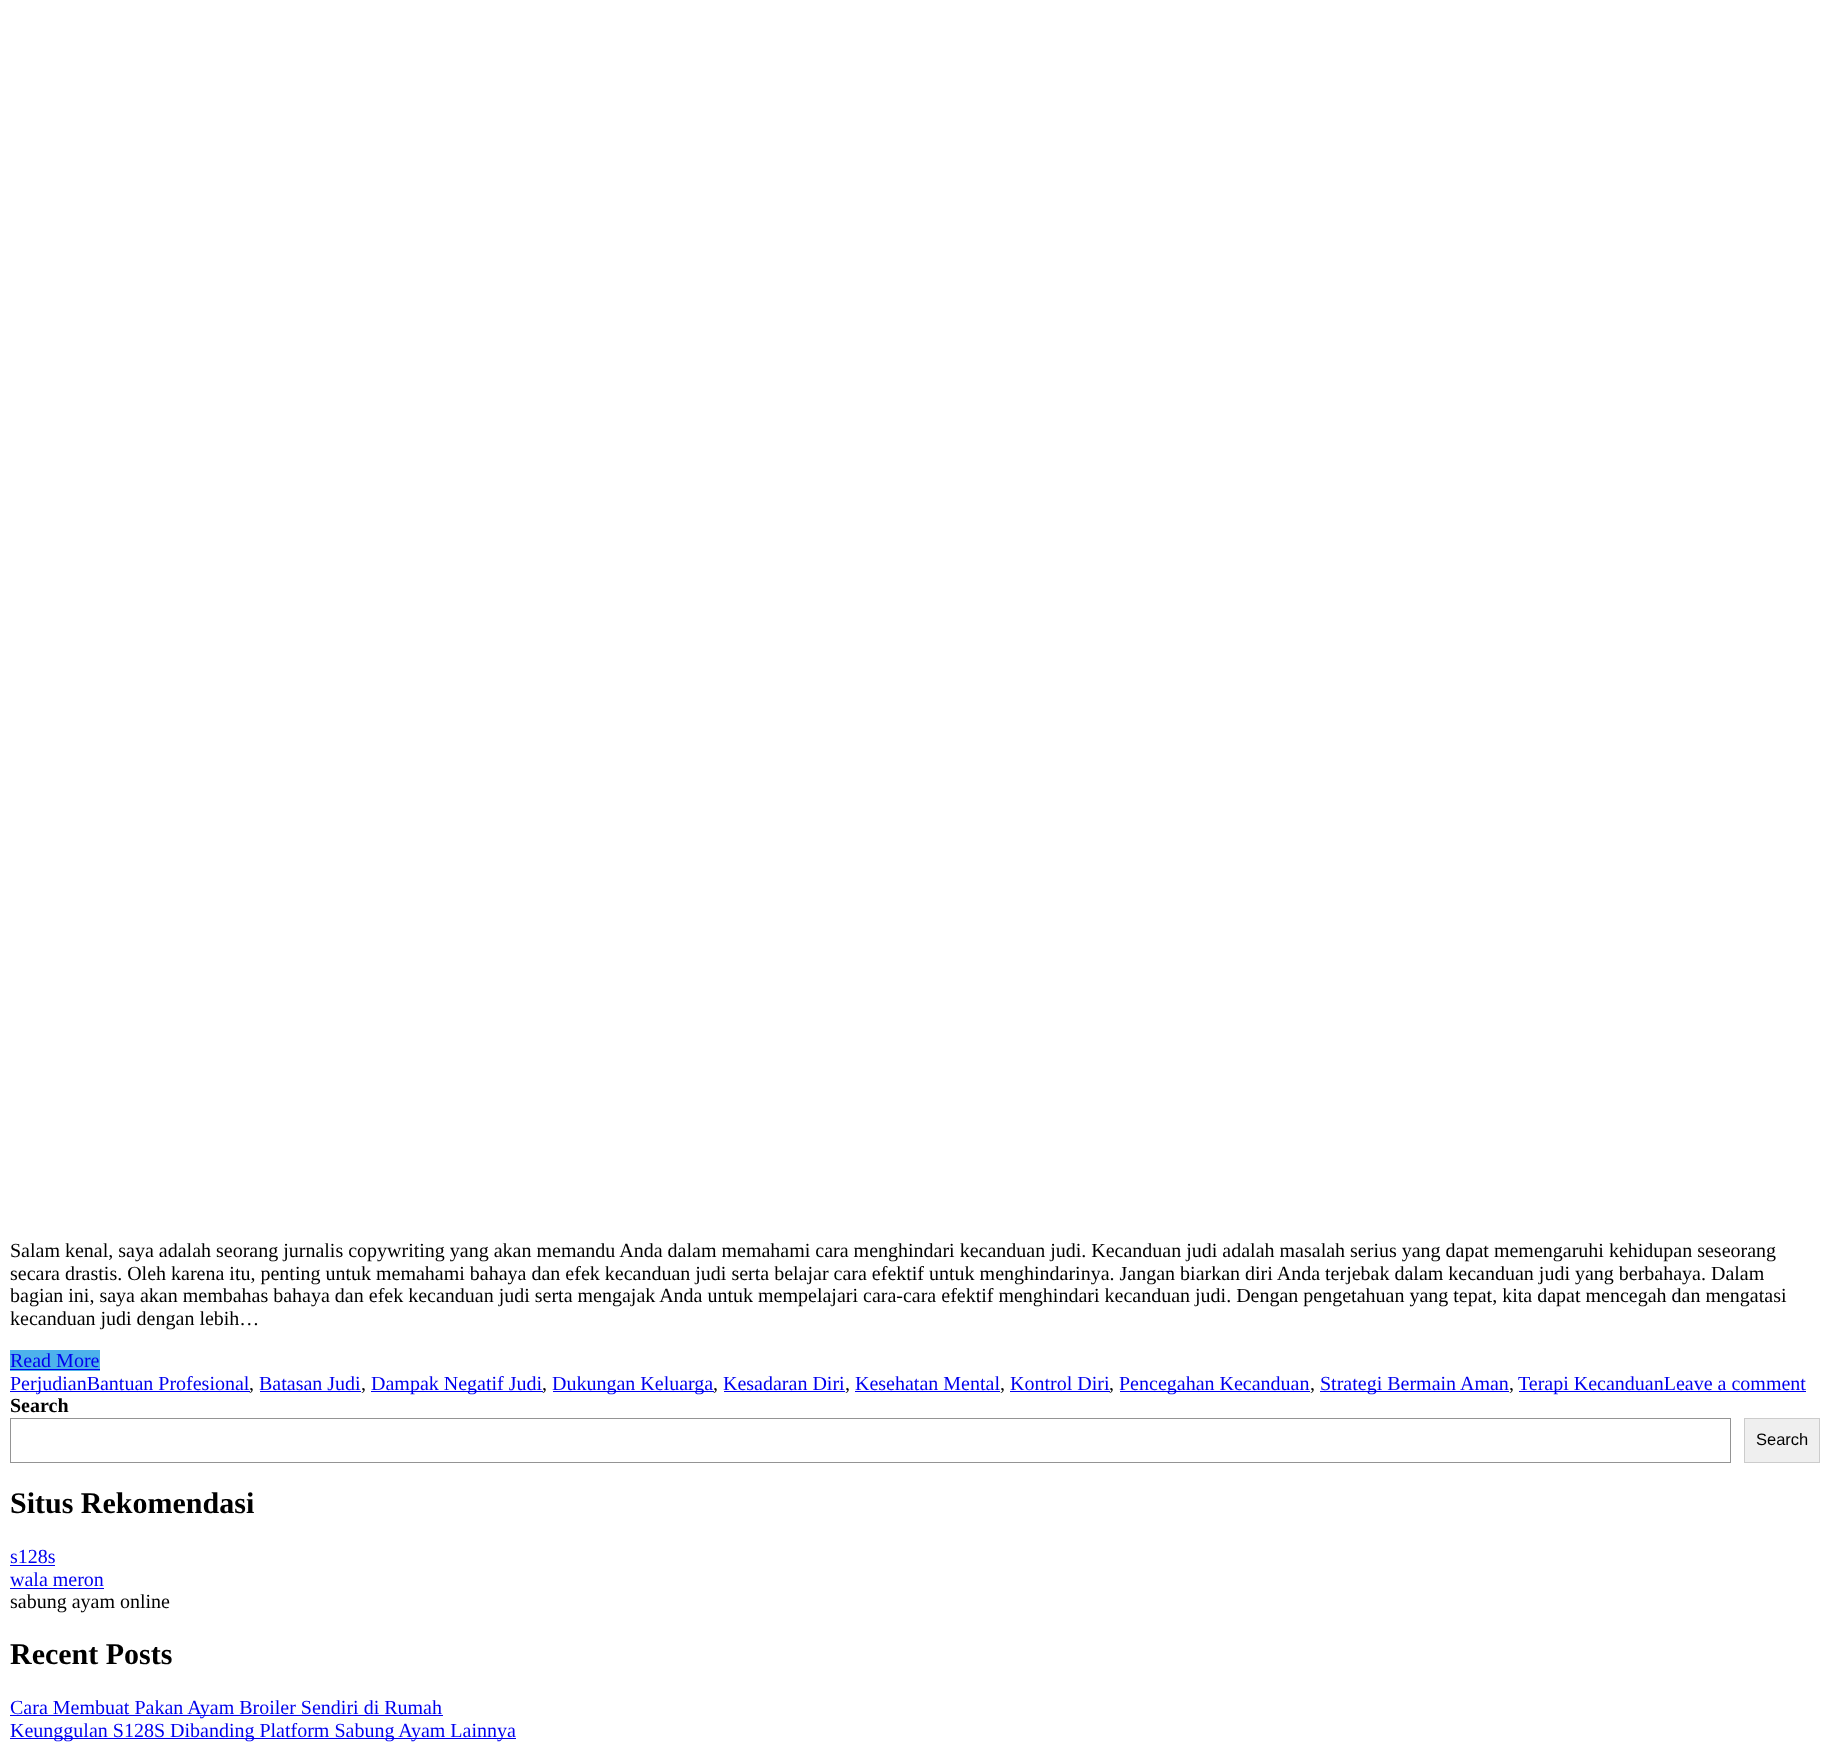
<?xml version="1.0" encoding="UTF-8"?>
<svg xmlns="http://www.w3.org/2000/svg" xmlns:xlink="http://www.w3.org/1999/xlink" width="1829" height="1755">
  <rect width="100%" height="100%" fill="#ffffff" />
  <rect x="10" y="1350" width="90" height="21" fill="#4db2ec" />
  <rect x="10" y="1369" width="90" height="1" fill="#0000ee" />
  <rect x="10" y="1391" width="76" height="1" fill="#0000ee" />
  <rect x="86" y="1391" width="164" height="1" fill="#0000ee" />
  <rect x="260" y="1391" width="101" height="1" fill="#0000ee" />
  <rect x="371" y="1391" width="172" height="1" fill="#0000ee" />
  <rect x="553" y="1391" width="161" height="1" fill="#0000ee" />
  <rect x="724" y="1391" width="121" height="1" fill="#0000ee" />
  <rect x="855" y="1391" width="145" height="1" fill="#0000ee" />
  <rect x="1010" y="1391" width="100" height="1" fill="#0000ee" />
  <rect x="1120" y="1391" width="190" height="1" fill="#0000ee" />
  <rect x="1320" y="1391" width="189" height="1" fill="#0000ee" />
  <rect x="1519" y="1391" width="287" height="1" fill="#0000ee" />
  <rect x="10.5" y="1418.5" width="1720" height="44" fill="none" stroke="#949494" />
  <rect x="1744.5" y="1418.5" width="75" height="44" fill="#efefef" stroke="#cccccc" />
  <rect x="10" y="1565" width="45" height="1" fill="#0000ee" />
  <rect x="10" y="1588" width="94" height="1" fill="#0000ee" />
  <rect x="10" y="1715" width="433" height="1" fill="#0000ee" />
  <rect x="10" y="1738" width="506" height="1" fill="#0000ee" />
  <text x="10" y="1257" style="font-family: Liberation Serif; font-size: 20px; fill: #000000">Salam kenal, saya adalah seorang jurnalis copywriting yang akan memandu Anda dalam memahami cara menghindari kecanduan judi. Kecanduan judi adalah masalah serius yang dapat memengaruhi kehidupan seseorang</text>
  <text x="10" y="1280" style="font-family: Liberation Serif; font-size: 20px; fill: #000000">secara drastis. Oleh karena itu, penting untuk memahami bahaya dan efek kecanduan judi serta belajar cara efektif untuk menghindarinya. Jangan biarkan diri Anda terjebak dalam kecanduan judi yang berbahaya. Dalam</text>
  <text x="10" y="1302" style="font-family: Liberation Serif; font-size: 20px; fill: #000000">bagian ini, saya akan membahas bahaya dan efek kecanduan judi serta mengajak Anda untuk mempelajari cara-cara efektif menghindari kecanduan judi. Dengan pengetahuan yang tepat, kita dapat mencegah dan mengatasi</text>
  <text x="10" y="1325" style="font-family: Liberation Serif; font-size: 20px; fill: #000000">kecanduan judi dengan lebih…</text>
  <text x="10" y="1367" style="font-family: Liberation Serif; font-size: 20px; fill: #0000ee">Read More</text>
  <text x="10" y="1390" style="font-family: Liberation Serif; font-size: 20px; fill: #0000ee">PerjudianBantuan Profesional</text>
  <text x="249" y="1390" style="font-family: Liberation Serif; font-size: 20px; fill: #000000">,</text>
  <text x="259" y="1390" style="font-family: Liberation Serif; font-size: 20px; fill: #0000ee">Batasan Judi</text>
  <text x="361" y="1390" style="font-family: Liberation Serif; font-size: 20px; fill: #000000">,</text>
  <text x="371" y="1390" style="font-family: Liberation Serif; font-size: 20px; fill: #0000ee">Dampak Negatif Judi</text>
  <text x="542" y="1390" style="font-family: Liberation Serif; font-size: 20px; fill: #000000">,</text>
  <text x="552" y="1390" style="font-family: Liberation Serif; font-size: 20px; fill: #0000ee">Dukungan Keluarga</text>
  <text x="713" y="1390" style="font-family: Liberation Serif; font-size: 20px; fill: #000000">,</text>
  <text x="723" y="1390" style="font-family: Liberation Serif; font-size: 20px; fill: #0000ee">Kesadaran Diri</text>
  <text x="845" y="1390" style="font-family: Liberation Serif; font-size: 20px; fill: #000000">,</text>
  <text x="855" y="1390" style="font-family: Liberation Serif; font-size: 20px; fill: #0000ee">Kesehatan Mental</text>
  <text x="1000" y="1390" style="font-family: Liberation Serif; font-size: 20px; fill: #000000">,</text>
  <text x="1010" y="1390" style="font-family: Liberation Serif; font-size: 20px; fill: #0000ee">Kontrol Diri</text>
  <text x="1109" y="1390" style="font-family: Liberation Serif; font-size: 20px; fill: #000000">,</text>
  <text x="1119" y="1390" style="font-family: Liberation Serif; font-size: 20px; fill: #0000ee">Pencegahan Kecanduan</text>
  <text x="1310" y="1390" style="font-family: Liberation Serif; font-size: 20px; fill: #000000">,</text>
  <text x="1320" y="1390" style="font-family: Liberation Serif; font-size: 20px; fill: #0000ee">Strategi Bermain Aman</text>
  <text x="1509" y="1390" style="font-family: Liberation Serif; font-size: 20px; fill: #000000">,</text>
  <text x="1518" y="1390" style="font-family: Liberation Serif; font-size: 20px; fill: #0000ee">Terapi KecanduanLeave a comment</text>
  <text x="10" y="1412" style="font-family: Liberation Serif; font-size: 20px; font-weight: bold; fill: #000000">Search</text>
  <text x="1756" y="1445" style="font-family: Liberation Sans; font-size: 16.5px; fill: #000000">Search</text>
  <text x="10" y="1513" style="font-family: Liberation Serif; font-size: 30px; font-weight: bold; fill: #000000">Situs Rekomendasi</text>
  <text x="10" y="1563" style="font-family: Liberation Serif; font-size: 20px; fill: #0000ee">s128s</text>
  <text x="10" y="1586" style="font-family: Liberation Serif; font-size: 20px; fill: #0000ee">wala meron</text>
  <text x="10" y="1608" style="font-family: Liberation Serif; font-size: 20px; fill: #000000">sabung ayam online</text>
  <text x="10" y="1664" style="font-family: Liberation Serif; font-size: 30px; font-weight: bold; fill: #000000">Recent Posts</text>
  <text x="10" y="1714" style="font-family: Liberation Serif; font-size: 20px; fill: #0000ee">Cara Membuat Pakan Ayam Broiler Sendiri di Rumah</text>
  <text x="10" y="1737" style="font-family: Liberation Serif; font-size: 20px; fill: #0000ee">Keunggulan S128S Dibanding Platform Sabung Ayam Lainnya</text>
</svg>
